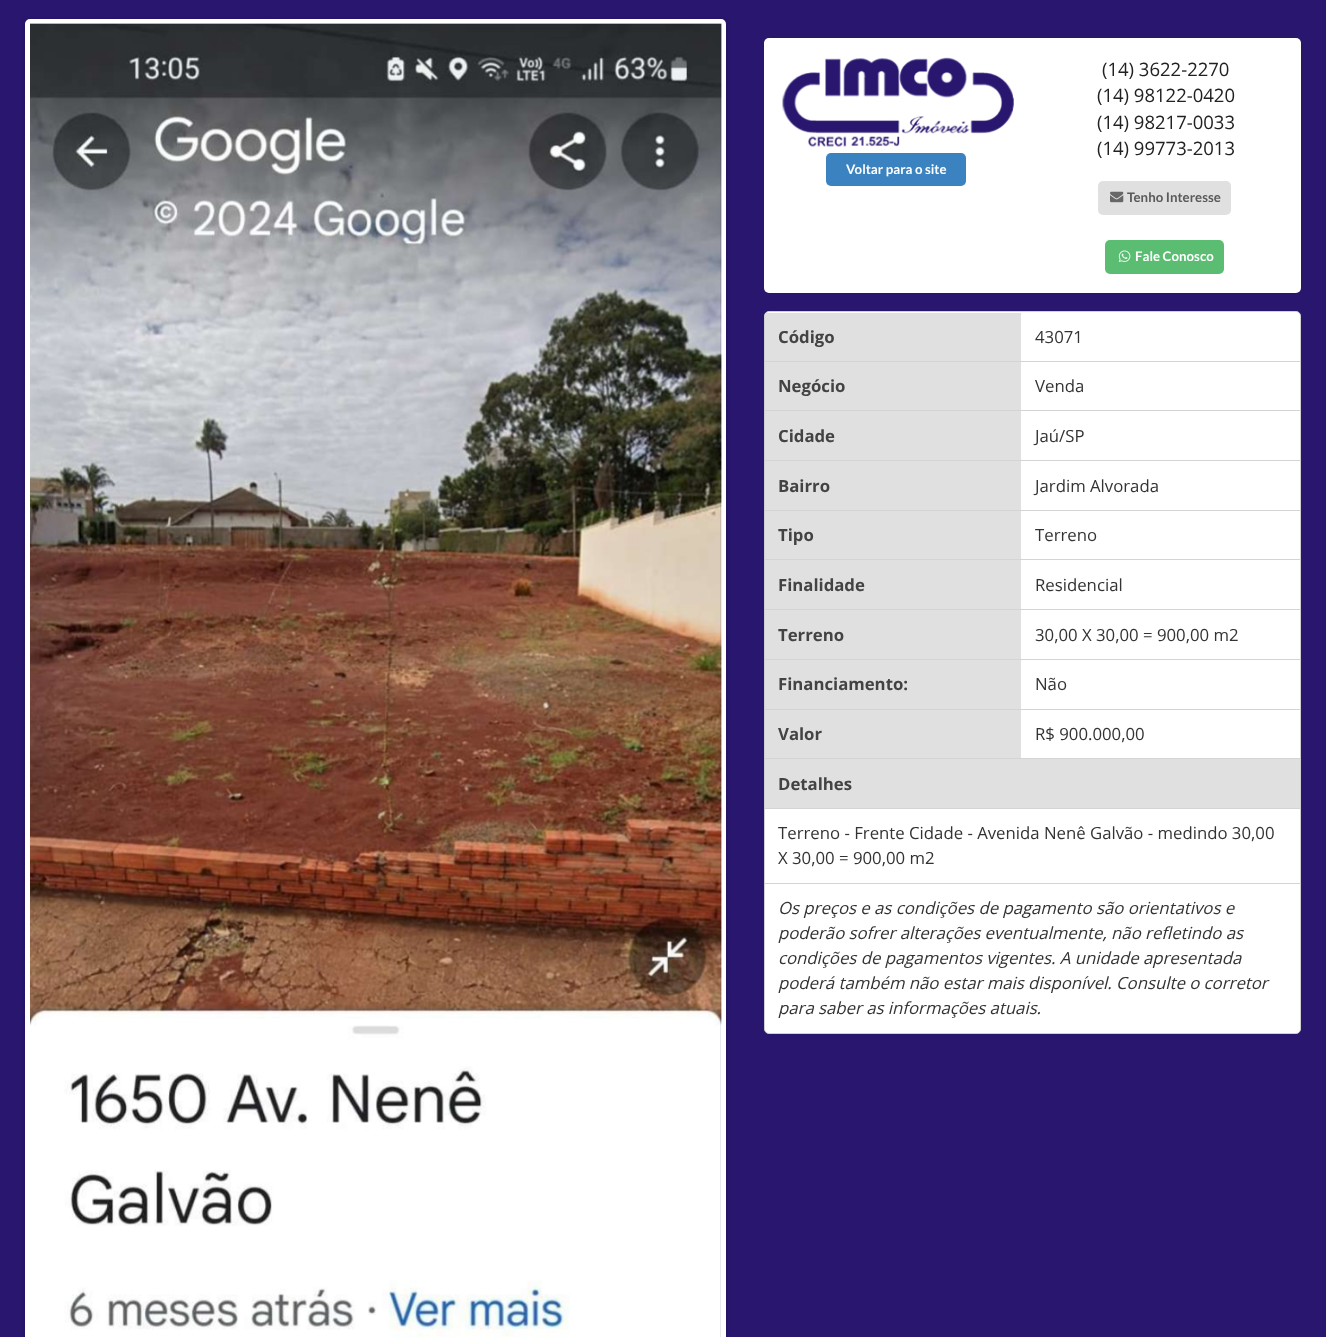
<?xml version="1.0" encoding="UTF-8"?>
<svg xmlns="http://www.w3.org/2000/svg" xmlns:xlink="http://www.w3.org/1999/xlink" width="1326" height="1337">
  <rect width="100%" height="100%" fill="#29166f" />
  <rect x="25" y="20" width="701" height="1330" rx="5" fill="#000000" fill-opacity="0.2" filter="blur(2.5px)" />
  <rect x="27.5" y="21.5" width="696" height="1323" rx="2.5" fill="none" stroke="#ffffff" stroke-width="5" />
  <image x="30" y="23" width="692" height="1314" xlink:href="image1.png" />
  <rect x="763.5" y="36.5" width="539" height="257" rx="5.5" fill="none" stroke="#27292b" stroke-opacity="0.15" />
  <rect x="764" y="38" width="537" height="255" rx="5" fill="#ffffff" />
  <image x="782" y="57" width="232" height="90" xlink:href="image2.png" />
  <rect x="826" y="153" width="140" height="33" rx="5" fill="#3b83c0" />
  <rect x="1098" y="181" width="133" height="34" rx="5" fill="#e0e0e0" />
  <image x="1110" y="191" width="14" height="12" xlink:href="image3.png" />
  <rect x="1105" y="240" width="119" height="34" rx="5" fill="#5bbd72" />
  <image x="1118" y="250" width="13" height="12" xlink:href="image4.png" />
  <rect x="764.5" y="311.5" width="536" height="722" rx="4.5" fill="#ffffff" stroke="#d0d0d0" />
  <rect x="765" y="313" width="256" height="48" fill="#e0e0e0" />
  <rect x="765" y="362" width="256" height="48" fill="#e0e0e0" />
  <rect x="765" y="361" width="535" height="1" fill="#d4d4d5" />
  <rect x="765" y="411" width="256" height="49" fill="#e0e0e0" />
  <rect x="765" y="410" width="535" height="1" fill="#d4d4d5" />
  <rect x="765" y="461" width="256" height="49" fill="#e0e0e0" />
  <rect x="765" y="460" width="535" height="1" fill="#d4d4d5" />
  <rect x="765" y="511" width="256" height="48" fill="#e0e0e0" />
  <rect x="765" y="510" width="535" height="1" fill="#d4d4d5" />
  <rect x="765" y="560" width="256" height="49" fill="#e0e0e0" />
  <rect x="765" y="559" width="535" height="1" fill="#d4d4d5" />
  <rect x="765" y="610" width="256" height="49" fill="#e0e0e0" />
  <rect x="765" y="609" width="535" height="1" fill="#d4d4d5" />
  <rect x="765" y="660" width="256" height="49" fill="#e0e0e0" />
  <rect x="765" y="659" width="535" height="1" fill="#d4d4d5" />
  <rect x="765" y="710" width="256" height="48" fill="#e0e0e0" />
  <rect x="765" y="709" width="535" height="1" fill="#d4d4d5" />
  <rect x="765" y="759" width="535" height="49" fill="#e0e0e0" />
  <rect x="765" y="758" width="535" height="1" fill="#d4d4d5" />
  <rect x="765" y="808" width="535" height="1" fill="#d4d4d5" />
  <rect x="765" y="883" width="535" height="1" fill="#d4d4d5" />
  <text x="846" y="174" style="font-family: Lato; font-size: 13.25px; font-weight: bold; fill: #ffffff">Voltar para o site</text>
  <text x="1102" y="76" style="font-family: Open Sans; font-size: 18.5px; fill: #212121">(14) 3622-2270</text>
  <text x="1097" y="102" style="font-family: Open Sans; font-size: 18.5px; fill: #212121">(14) 98122-0420</text>
  <text x="1097" y="129" style="font-family: Open Sans; font-size: 18.5px; fill: #212121">(14) 98217-0033</text>
  <text x="1097" y="155" style="font-family: Open Sans; font-size: 18.5px; fill: #212121">(14) 99773-2013</text>
  <text x="1127" y="202" style="font-family: Lato; font-size: 13.25px; font-weight: bold; fill: #5a5a5a">Tenho Interesse</text>
  <text x="1135" y="261" style="font-family: Lato; font-size: 13.25px; font-weight: bold; fill: #ffffff">Fale Conosco</text>
  <text x="778" y="343" style="font-family: Open Sans; font-size: 16.75px; font-weight: bold; fill: #434343">Código</text>
  <text x="1035" y="343" style="font-family: Open Sans; font-size: 16.75px; fill: #333333">43071</text>
  <text x="778" y="392" style="font-family: Open Sans; font-size: 16.75px; font-weight: bold; fill: #434343">Negócio</text>
  <text x="1035" y="392" style="font-family: Open Sans; font-size: 16.75px; fill: #333333">Venda</text>
  <text x="778" y="442" style="font-family: Open Sans; font-size: 16.75px; font-weight: bold; fill: #434343">Cidade</text>
  <text x="1035" y="442" style="font-family: Open Sans; font-size: 16.75px; fill: #333333">Jaú/SP</text>
  <text x="778" y="492" style="font-family: Open Sans; font-size: 16.75px; font-weight: bold; fill: #434343">Bairro</text>
  <text x="1035" y="492" style="font-family: Open Sans; font-size: 16.75px; fill: #333333">Jardim Alvorada</text>
  <text x="778" y="541" style="font-family: Open Sans; font-size: 16.75px; font-weight: bold; fill: #434343">Tipo</text>
  <text x="1035" y="541" style="font-family: Open Sans; font-size: 16.75px; fill: #333333">Terreno</text>
  <text x="778" y="591" style="font-family: Open Sans; font-size: 16.75px; font-weight: bold; fill: #434343">Finalidade</text>
  <text x="1035" y="591" style="font-family: Open Sans; font-size: 16.75px; fill: #333333">Residencial</text>
  <text x="778" y="641" style="font-family: Open Sans; font-size: 16.75px; font-weight: bold; fill: #434343">Terreno</text>
  <text x="1035" y="641" style="font-family: Open Sans; font-size: 16.75px; fill: #333333">30,00 X 30,00 = 900,00 m2</text>
  <text x="778" y="690" style="font-family: Open Sans; font-size: 16.75px; font-weight: bold; fill: #434343">Financiamento:</text>
  <text x="1035" y="690" style="font-family: Open Sans; font-size: 16.75px; fill: #333333">Não</text>
  <text x="778" y="740" style="font-family: Open Sans; font-size: 16.75px; font-weight: bold; fill: #434343">Valor</text>
  <text x="1035" y="740" style="font-family: Open Sans; font-size: 16.75px; fill: #333333">R$ 900.000,00</text>
  <text x="778" y="790" style="font-family: Open Sans; font-size: 16.75px; font-weight: bold; fill: #434343">Detalhes</text>
  <text x="778" y="839" style="font-family: Open Sans; font-size: 16.75px; fill: #333333">Terreno - Frente Cidade - Avenida Nenê Galvão - medindo 30,00</text>
  <text x="778" y="864" style="font-family: Open Sans; font-size: 16.75px; fill: #333333">X 30,00 = 900,00 m2</text>
  <text x="778" y="914" style="font-family: Open Sans; font-size: 16.75px; font-style: italic; fill: #333333">Os preços e as condições de pagamento são orientativos e</text>
  <text x="778" y="939" style="font-family: Open Sans; font-size: 16.75px; font-style: italic; fill: #333333">poderão sofrer alterações eventualmente, não refletindo as</text>
  <text x="778" y="964" style="font-family: Open Sans; font-size: 16.75px; font-style: italic; fill: #333333">condições de pagamentos vigentes. A unidade apresentada</text>
  <text x="778" y="989" style="font-family: Open Sans; font-size: 16.75px; font-style: italic; fill: #333333">poderá também não estar mais disponível. Consulte o corretor</text>
  <text x="778" y="1014" style="font-family: Open Sans; font-size: 16.75px; font-style: italic; fill: #333333">para saber as informações atuais.</text>
</svg>
